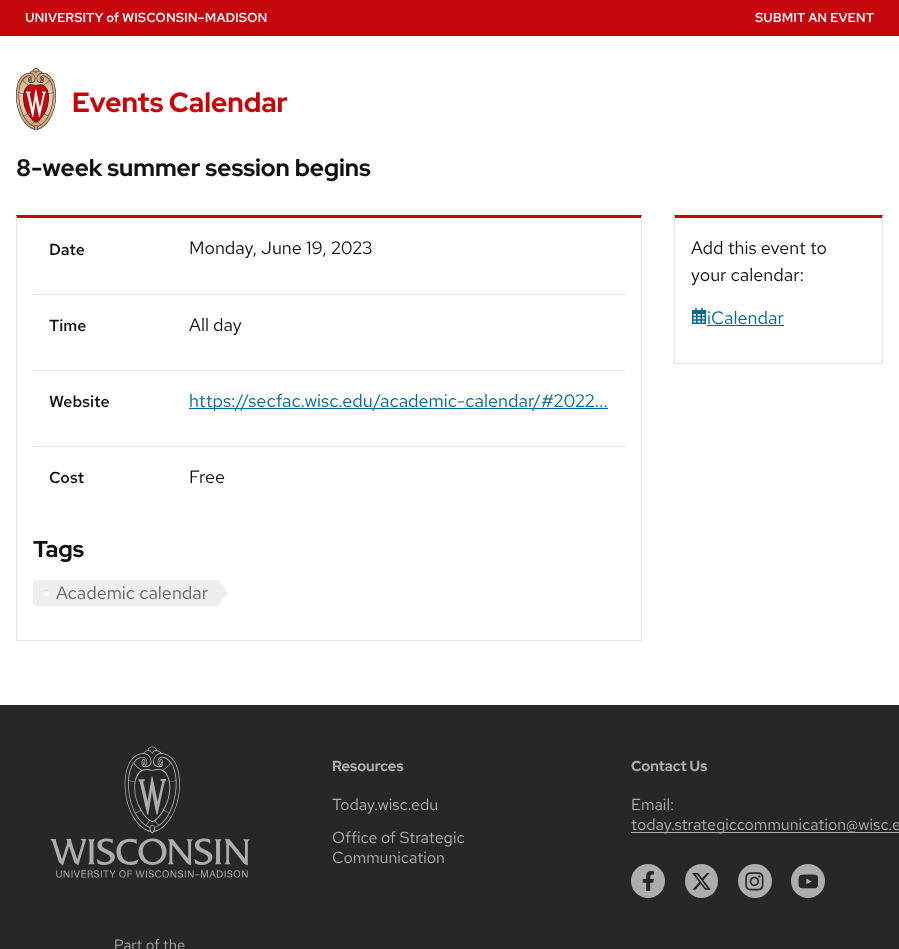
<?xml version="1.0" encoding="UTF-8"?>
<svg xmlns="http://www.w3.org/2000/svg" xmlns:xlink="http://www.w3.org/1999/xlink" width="899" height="949">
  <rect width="100%" height="100%" fill="#ffffff" />
  <rect width="899" height="36" fill="#c5050c" />
  <image x="16" y="68" width="40" height="62" xlink:href="image1.png" />
  <path d="M 16 215 h 626 l -1 3 h -624 z" fill="#c5050c" />
  <path d="M 642 215 v 426 l -1 -1 v -422 z" fill="#e1e5e7" />
  <rect x="16" y="640" width="626" height="1" fill="#e1e5e7" />
  <path d="M 16 641 v -426 l 1 3 v 422 z" fill="#e1e5e7" />
  <rect x="33" y="294" width="592" height="1" fill="#e1e5e7" />
  <rect x="33" y="370" width="592" height="1" fill="#e1e5e7" />
  <rect x="189" y="408" width="419" height="1" fill="#036796" />
  <rect x="33" y="446" width="592" height="1" fill="#e1e5e7" />
  <path d="M 36 580 h 192 v 26 h -192 c -1.5 0 -3 -1.5 -3 -3 v -20 c 0 -1.5 1.5 -3 3 -3 z" fill="#eeeeee" />
  <circle cx="46" cy="593" r="3" fill="#ffffff" />
  <path d="M 46 591 c 2 0 3 1 3 2.5 c 0.5 -4.5 -6.5 -4.5 -6 0 c 0 -1.5 1 -2.5 3 -2.5 z" fill="#000000" fill-opacity="0.25" />
  <rect x="218" y="580" width="10" height="26" fill="#ffffff" />
  <path d="M 218 606 v -26 l 10 13 z" fill="#eeeeee" />
  <path d="M 674 215 h 209 l -1 3 h -207 z" fill="#c5050c" />
  <path d="M 883 215 v 149 l -1 -1 v -145 z" fill="#e1e5e7" />
  <rect x="674" y="363" width="209" height="1" fill="#e1e5e7" />
  <path d="M 674 364 v -149 l 1 3 v 145 z" fill="#e1e5e7" />
  <image x="692" y="308" width="14" height="16" xlink:href="image2.png" />
  <rect x="707" y="325" width="77" height="1" fill="#036796" />
  <rect y="705" width="899" height="244" fill="#282728" />
  <rect x="631" y="832" width="268" height="1" fill="#adadad" />
  <circle cx="648" cy="881" r="17" fill="#adadad" />
  <image x="642" y="871" width="12" height="20" xlink:href="image3.png" />
  <rect x="685" y="864" width="33" height="34" rx="16.5" fill="#adadad" />
  <image x="692" y="873" width="19" height="17" xlink:href="image4.png" />
  <circle cx="755" cy="881" r="17" fill="#adadad" />
  <image x="745" y="872" width="19" height="19" xlink:href="image5.png" />
  <circle cx="808" cy="881" r="17" fill="#adadad" />
  <image x="798" y="874" width="20" height="15" xlink:href="image6.png" />
  <image x="50" y="746" width="200" height="132" xlink:href="image7.png" />
  <text x="25" y="22" style="font-family: Red Hat Text; font-size: 13px; font-weight: 500; fill: #ffffff">UNIVERSITY of WISCONSIN–MADISON</text>
  <text x="755" y="22" style="font-family: Red Hat Text; font-size: 13px; font-weight: 500; fill: #ffffff">SUBMIT AN EVENT</text>
  <text x="72" y="112" style="font-family: Red Hat Display; font-size: 27.75px; font-weight: bold; fill: #c5050c">Events Calendar</text>
  <text x="16" y="176" style="font-family: Red Hat Display; font-size: 24px; font-weight: bold; fill: #121212">8-week summer session begins</text>
  <text x="49" y="255" style="font-family: Red Hat Text; font-size: 16px; font-weight: 600; fill: #121212">Date</text>
  <text x="189" y="254" style="font-family: Red Hat Text; font-size: 18px; fill: #121212">Monday, June 19, 2023</text>
  <text x="49" y="331" style="font-family: Red Hat Text; font-size: 16px; font-weight: 600; fill: #121212">Time</text>
  <text x="189" y="331" style="font-family: Red Hat Text; font-size: 18px; fill: #121212">All day</text>
  <text x="49" y="407" style="font-family: Red Hat Text; font-size: 16px; font-weight: 600; fill: #121212">Website</text>
  <text x="189" y="407" style="font-family: Red Hat Text; font-size: 18px; fill: #036796">https://secfac.wisc.edu/academic-calendar/#2022...</text>
  <text x="49" y="483" style="font-family: Red Hat Text; font-size: 16px; font-weight: 600; fill: #121212">Cost</text>
  <text x="189" y="483" style="font-family: Red Hat Text; font-size: 18px; fill: #121212">Free</text>
  <text x="33" y="557" style="font-family: Red Hat Display; font-size: 23px; font-weight: bold; fill: #121212">Tags</text>
  <text x="56" y="599" style="font-family: Red Hat Text; font-size: 18px; fill: #656565">Academic calendar</text>
  <text x="691" y="254" style="font-family: Red Hat Text; font-size: 18px; fill: #121212">Add this event to</text>
  <text x="691" y="281" style="font-family: Red Hat Text; font-size: 18px; fill: #121212">your calendar:</text>
  <text x="707" y="324" style="font-family: Red Hat Text; font-size: 18px; fill: #036796">iCalendar</text>
  <text x="332" y="771" style="font-family: Red Hat Display; font-size: 14.5px; font-weight: bold; fill: #adadad">Resources</text>
  <text x="332" y="810" style="font-family: Red Hat Text; font-size: 16px; fill: #adadad">Today.wisc.edu</text>
  <text x="332" y="843" style="font-family: Red Hat Text; font-size: 16px; fill: #adadad">Office of Strategic</text>
  <text x="332" y="863" style="font-family: Red Hat Text; font-size: 16px; fill: #adadad">Communication</text>
  <text x="631" y="771" style="font-family: Red Hat Display; font-size: 14.5px; font-weight: bold; fill: #adadad">Contact Us</text>
  <text x="631" y="810" style="font-family: Red Hat Text; font-size: 16px; fill: #adadad">Email:</text>
  <text x="631" y="830" style="font-family: Red Hat Text; font-size: 16px; fill: #adadad">today.strategiccommunication@wisc.e</text>
  <text x="114" y="950" style="font-family: Red Hat Text; font-size: 15px; fill: #adadad">Part of the</text>
</svg>
